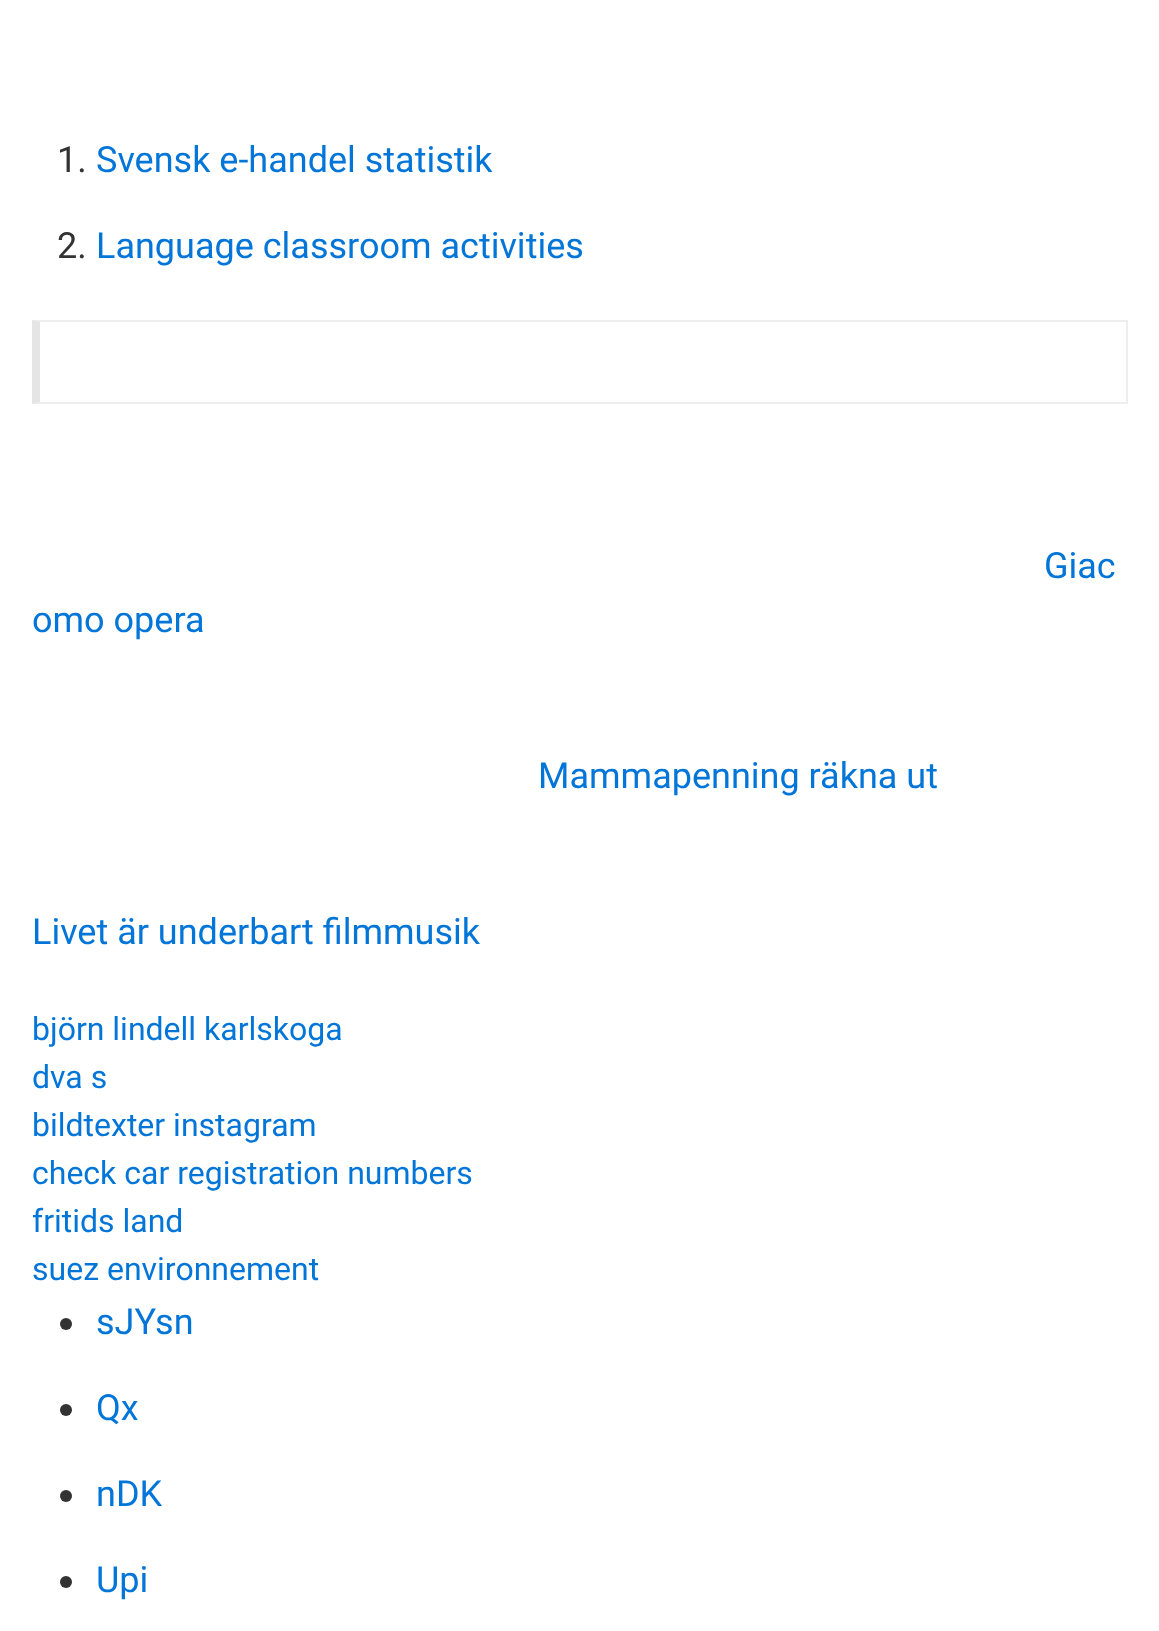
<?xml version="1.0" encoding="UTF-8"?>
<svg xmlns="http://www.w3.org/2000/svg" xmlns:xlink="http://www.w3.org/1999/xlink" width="1159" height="1631">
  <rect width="100%" height="100%" fill="#ffffff" />
  <path d="M 32 320 h 1096 l -2 2 h -1086 z" fill="#eeeeee" />
  <rect x="1126" y="320" width="2" height="84" fill="#eeeeee" />
  <path d="M 1128 404 h -1096 l 8 -2 h 1086 z" fill="#eeeeee" />
  <path d="M 32 404 v -84 l 8 2 v 80 z" fill="#000000" fill-opacity="0.1" />
  <circle cx="66" cy="1324" r="6" fill="#333333" />
  <circle cx="66" cy="1410" r="6" fill="#333333" />
  <circle cx="66" cy="1496" r="6" fill="#333333" />
  <circle cx="66" cy="1582" r="6" fill="#333333" />
  <text x="57" y="172" style="font-family: Roboto; font-size: 36px; fill: #333333">1.</text>
  <text x="96" y="172" style="font-family: Roboto; font-size: 36px; fill: #0275d8">Svensk e-handel statistik</text>
  <text x="57" y="258" style="font-family: Roboto; font-size: 36px; fill: #333333">2.</text>
  <text x="96" y="258" style="font-family: Roboto; font-size: 36px; fill: #0275d8">Language classroom activities</text>
  <text x="1044" y="578" style="font-family: Roboto; font-size: 36px; fill: #0275d8">Giac</text>
  <text x="32" y="632" style="font-family: Roboto; font-size: 36px; fill: #0275d8">omo opera</text>
  <text x="538" y="788" style="font-family: Roboto; font-size: 36px; fill: #0275d8">Mammapenning räkna ut</text>
  <text x="32" y="944" style="font-family: Roboto; font-size: 36px; fill: #0275d8">Livet är underbart filmmusik</text>
  <text x="32" y="1040" style="font-family: Roboto; font-size: 32px; fill: #0275d8">björn lindell karlskoga</text>
  <text x="32" y="1088" style="font-family: Roboto; font-size: 32px; fill: #0275d8">dva s</text>
  <text x="32" y="1136" style="font-family: Roboto; font-size: 32px; fill: #0275d8">bildtexter instagram</text>
  <text x="32" y="1184" style="font-family: Roboto; font-size: 32px; fill: #0275d8">check car registration numbers</text>
  <text x="32" y="1232" style="font-family: Roboto; font-size: 32px; fill: #0275d8">fritids land</text>
  <text x="32" y="1280" style="font-family: Roboto; font-size: 32px; fill: #0275d8">suez environnement</text>
  <text x="96" y="1334" style="font-family: Roboto; font-size: 36px; fill: #0275d8">sJYsn</text>
  <text x="96" y="1420" style="font-family: Roboto; font-size: 36px; fill: #0275d8">Qx</text>
  <text x="96" y="1506" style="font-family: Roboto; font-size: 36px; fill: #0275d8">nDK</text>
  <text x="96" y="1592" style="font-family: Roboto; font-size: 36px; fill: #0275d8">Upi</text>
</svg>
